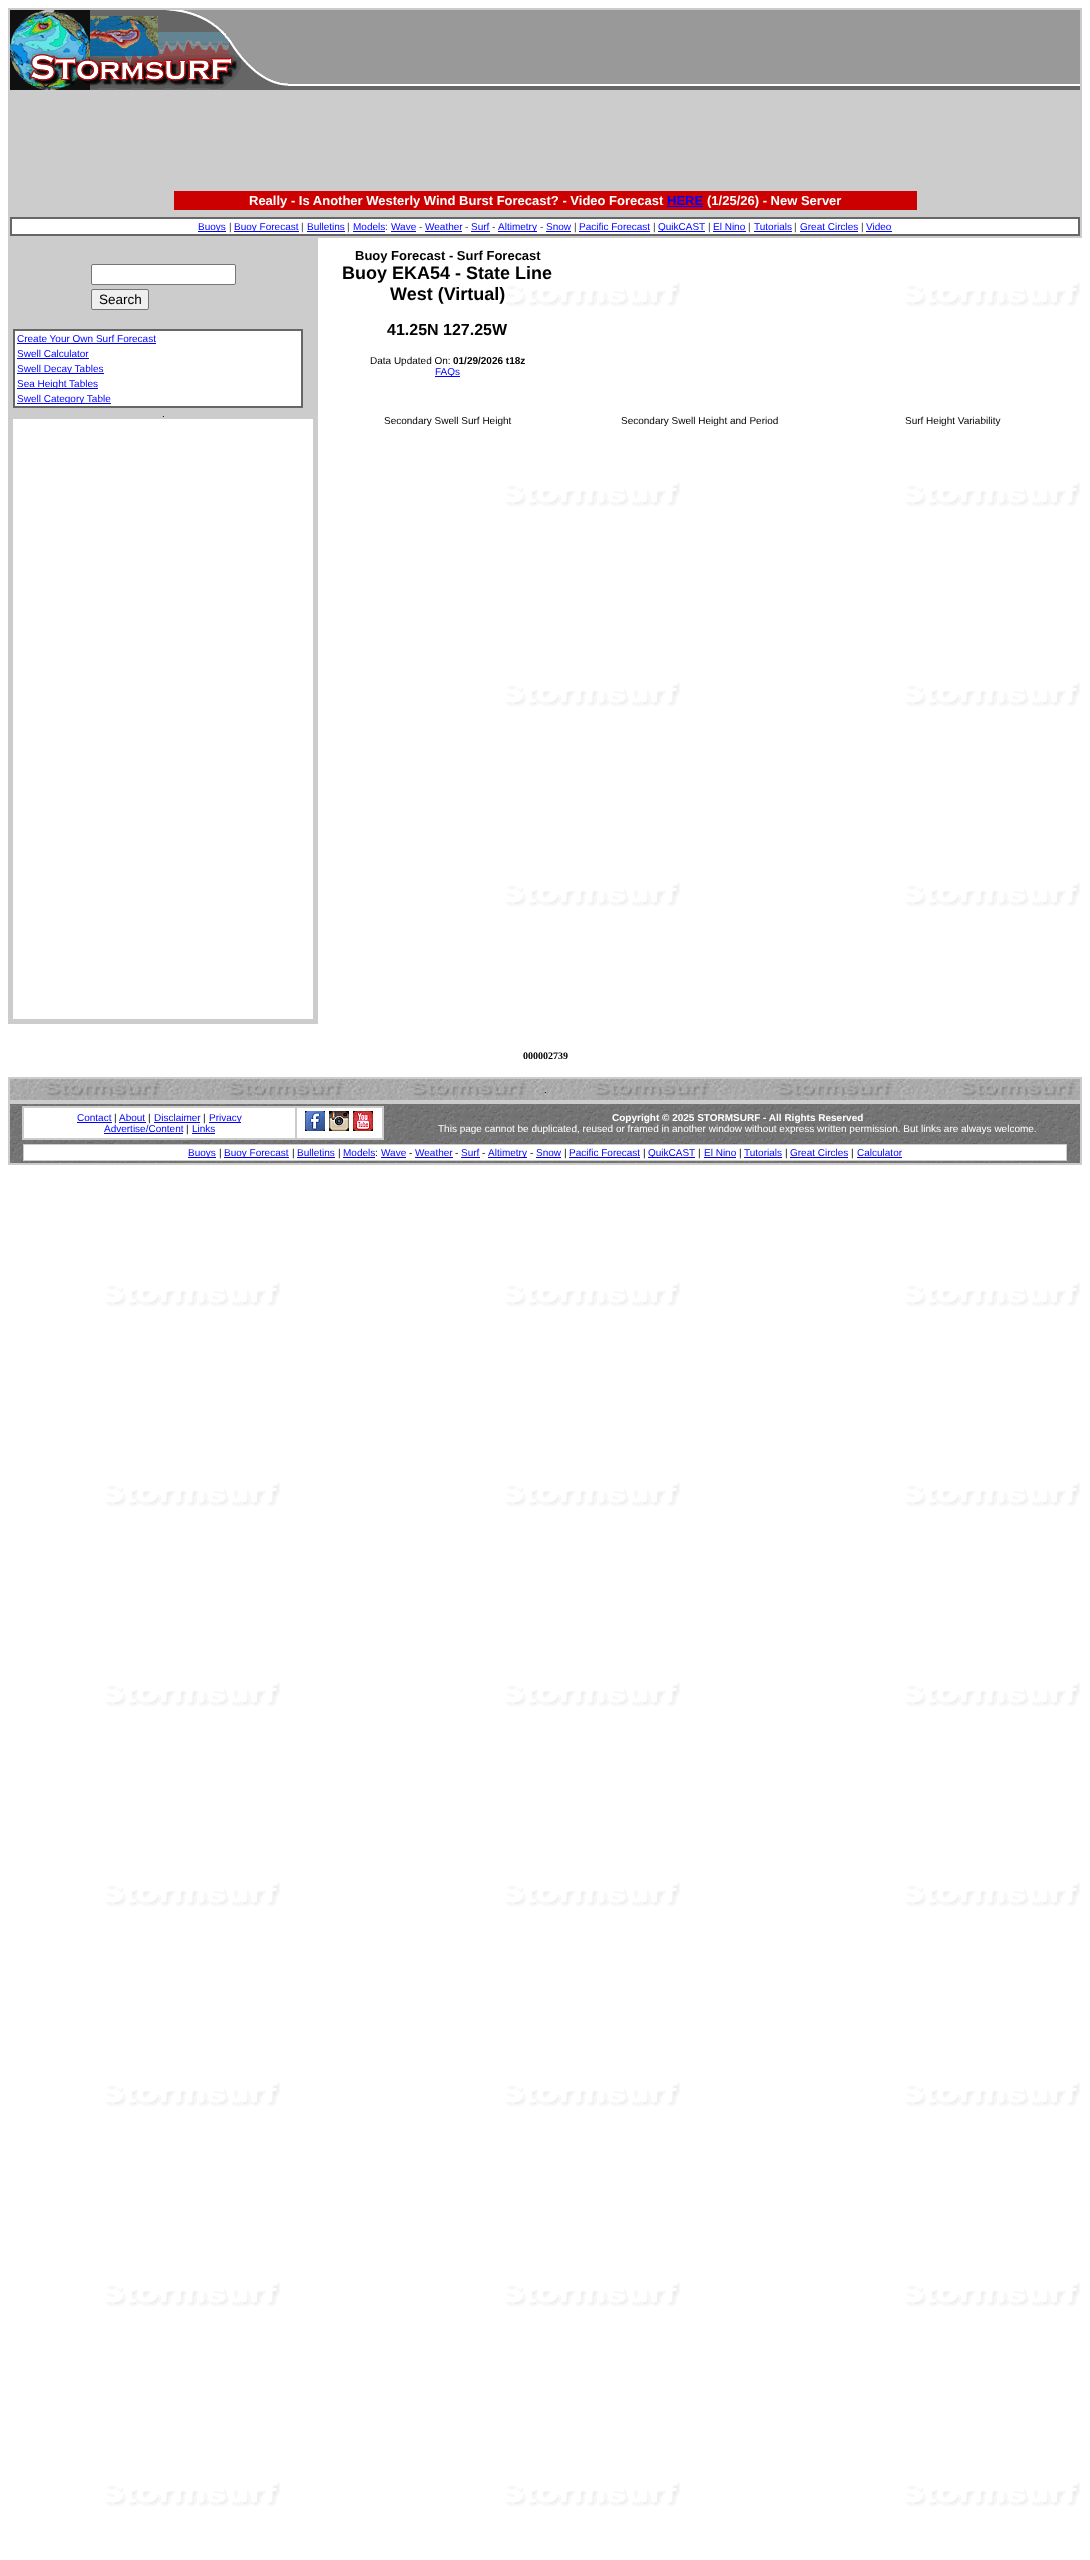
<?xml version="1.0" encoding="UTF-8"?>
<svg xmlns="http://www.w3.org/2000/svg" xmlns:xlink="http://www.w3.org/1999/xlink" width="1090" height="2560">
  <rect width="100%" height="100%" fill="#ffffff" />
  <image x="106" y="238" width="974" height="2268" xlink:href="image1.png" />
  <rect x="8" y="8" width="1074" height="230" fill="#cccccc" />
  <rect x="288" y="10" width="792" height="74" fill="#999999" />
  <image x="10" y="10" width="278" height="80" xlink:href="image2.png" />
  <image x="288" y="84" width="792" height="6" xlink:href="image3.png" />
  <rect x="174" y="191" width="743" height="19" fill="#cc0000" />
  <rect x="667" y="206" width="36" height="1" fill="#0000ff" />
  <rect x="10" y="217" width="1070" height="19" fill="#666666" />
  <rect x="12" y="219" width="1066" height="15" fill="#ffffff" />
  <rect x="198" y="231" width="28" height="1" fill="#0000ff" />
  <rect x="234" y="231" width="65" height="1" fill="#0000ff" />
  <rect x="307" y="231" width="38" height="1" fill="#0000ff" />
  <rect x="353" y="231" width="32" height="1" fill="#0000ff" />
  <rect x="391" y="231" width="25" height="1" fill="#0000ff" />
  <rect x="425" y="231" width="37" height="1" fill="#0000ff" />
  <rect x="471" y="231" width="19" height="1" fill="#0000ff" />
  <rect x="498" y="231" width="39" height="1" fill="#0000ff" />
  <rect x="546" y="231" width="25" height="1" fill="#0000ff" />
  <rect x="579" y="231" width="71" height="1" fill="#0000ff" />
  <rect x="658" y="231" width="47" height="1" fill="#0000ff" />
  <rect x="713" y="231" width="33" height="1" fill="#0000ff" />
  <rect x="754" y="231" width="38" height="1" fill="#0000ff" />
  <rect x="800" y="231" width="58" height="1" fill="#0000ff" />
  <rect x="866" y="231" width="26" height="1" fill="#0000ff" />
  <rect x="8" y="238" width="310" height="786" fill="#cccccc" />
  <rect x="91.5" y="264.5" width="144" height="20" rx="1.5" fill="#ffffff" stroke="#767676" />
  <rect x="91.5" y="289.5" width="57" height="20" rx="1.5" fill="#efefef" stroke="#767676" />
  <rect x="13.5" y="329.5" width="289" height="78" fill="none" stroke="#666666" />
  <rect x="14.5" y="330.5" width="287" height="76" fill="none" stroke="#666666" />
  <rect x="15" y="331" width="286" height="75" fill="#ffffff" />
  <rect x="17" y="343" width="139" height="1" fill="#0000ff" />
  <rect x="17" y="358" width="72" height="1" fill="#0000ff" />
  <rect x="17" y="373" width="87" height="1" fill="#0000ff" />
  <rect x="17" y="388" width="81" height="1" fill="#0000ff" />
  <rect x="17" y="403" width="94" height="1" fill="#0000ff" />
  <rect x="13" y="419" width="300" height="600" fill="#ffffff" />
  <rect x="435" y="376" width="25" height="1" fill="#0000ff" />
  <rect x="8" y="1077" width="1074" height="88" fill="#cccccc" />
  <image x="10" y="1079" width="1070" height="21" xlink:href="image4.png" />
  <image x="10" y="1104" width="1070" height="59" xlink:href="image5.png" />
  <rect x="24" y="1108" width="358" height="30" fill="#ffffff" />
  <rect x="22.5" y="1106.5" width="361" height="33" fill="none" stroke="#cccccc" />
  <rect x="23.5" y="1107.5" width="272" height="31" fill="none" stroke="#cccccc" />
  <rect x="77" y="1122" width="35" height="1" fill="#0000ff" />
  <rect x="119" y="1122" width="27" height="1" fill="#0000ff" />
  <rect x="154" y="1122" width="46" height="1" fill="#0000ff" />
  <rect x="209" y="1122" width="32" height="1" fill="#0000ff" />
  <rect x="104" y="1133" width="79" height="1" fill="#0000ff" />
  <rect x="192" y="1133" width="23" height="1" fill="#0000ff" />
  <rect x="296.5" y="1107.5" width="86" height="31" fill="none" stroke="#cccccc" />
  <image x="305" y="1111" width="20" height="20" xlink:href="image6.png" />
  <image x="329" y="1111" width="20" height="20" xlink:href="image7.png" />
  <image x="353" y="1111" width="20" height="20" xlink:href="image8.png" />
  <rect x="23" y="1144" width="1044" height="17" fill="#cccccc" />
  <rect x="24" y="1145" width="1042" height="15" fill="#ffffff" />
  <rect x="188" y="1157" width="28" height="1" fill="#0000ff" />
  <rect x="224" y="1157" width="65" height="1" fill="#0000ff" />
  <rect x="297" y="1157" width="38" height="1" fill="#0000ff" />
  <rect x="343" y="1157" width="32" height="1" fill="#0000ff" />
  <rect x="381" y="1157" width="25" height="1" fill="#0000ff" />
  <rect x="415" y="1157" width="38" height="1" fill="#0000ff" />
  <rect x="461" y="1157" width="19" height="1" fill="#0000ff" />
  <rect x="488" y="1157" width="39" height="1" fill="#0000ff" />
  <rect x="536" y="1157" width="25" height="1" fill="#0000ff" />
  <rect x="569" y="1157" width="71" height="1" fill="#0000ff" />
  <rect x="648" y="1157" width="47" height="1" fill="#0000ff" />
  <rect x="704" y="1157" width="32" height="1" fill="#0000ff" />
  <rect x="744" y="1157" width="38" height="1" fill="#0000ff" />
  <rect x="790" y="1157" width="58" height="1" fill="#0000ff" />
  <rect x="857" y="1157" width="45" height="1" fill="#0000ff" />
  <text x="249" y="205" style="font-family: Liberation Sans; font-size: 13px; font-weight: bold; fill: #ffffff">Really - Is Another Westerly Wind Burst Forecast? - Video Forecast</text>
  <text x="667" y="205" style="font-family: Liberation Sans; font-size: 13px; font-weight: bold; fill: #0000ff">HERE</text>
  <text x="707" y="205" style="font-family: Liberation Sans; font-size: 13px; font-weight: bold; fill: #ffffff">(1/25/26) - New Server</text>
  <text x="198" y="230" style="font-family: Liberation Sans; font-size: 10px; fill: #0000ff">Buoys</text>
  <text x="229" y="230" style="font-family: Liberation Sans; font-size: 10px; fill: #333333">|</text>
  <text x="234" y="230" style="font-family: Liberation Sans; font-size: 10px; fill: #0000ff">Buoy Forecast</text>
  <text x="301" y="230" style="font-family: Liberation Sans; font-size: 10px; fill: #333333">|</text>
  <text x="307" y="230" style="font-family: Liberation Sans; font-size: 10px; fill: #0000ff">Bulletins</text>
  <text x="347" y="230" style="font-family: Liberation Sans; font-size: 10px; fill: #333333">|</text>
  <text x="353" y="230" style="font-family: Liberation Sans; font-size: 10px; fill: #0000ff">Models</text>
  <text x="385" y="230" style="font-family: Liberation Sans; font-size: 10px; fill: #333333">:</text>
  <text x="391" y="230" style="font-family: Liberation Sans; font-size: 10px; fill: #0000ff">Wave</text>
  <text x="419" y="230" style="font-family: Liberation Sans; font-size: 10px; fill: #333333">-</text>
  <text x="425" y="230" style="font-family: Liberation Sans; font-size: 10px; fill: #0000ff">Weather</text>
  <text x="465" y="230" style="font-family: Liberation Sans; font-size: 10px; fill: #333333">-</text>
  <text x="471" y="230" style="font-family: Liberation Sans; font-size: 10px; fill: #0000ff">Surf</text>
  <text x="492" y="230" style="font-family: Liberation Sans; font-size: 10px; fill: #333333">-</text>
  <text x="498" y="230" style="font-family: Liberation Sans; font-size: 10px; fill: #0000ff">Altimetry</text>
  <text x="540" y="230" style="font-family: Liberation Sans; font-size: 10px; fill: #333333">-</text>
  <text x="546" y="230" style="font-family: Liberation Sans; font-size: 10px; fill: #0000ff">Snow</text>
  <text x="574" y="230" style="font-family: Liberation Sans; font-size: 10px; fill: #333333">|</text>
  <text x="579" y="230" style="font-family: Liberation Sans; font-size: 10px; fill: #0000ff">Pacific Forecast</text>
  <text x="653" y="230" style="font-family: Liberation Sans; font-size: 10px; fill: #333333">|</text>
  <text x="658" y="230" style="font-family: Liberation Sans; font-size: 10px; fill: #0000ff">QuikCAST</text>
  <text x="708" y="230" style="font-family: Liberation Sans; font-size: 10px; fill: #333333">|</text>
  <text x="713" y="230" style="font-family: Liberation Sans; font-size: 10px; fill: #0000ff">El Nino</text>
  <text x="748" y="230" style="font-family: Liberation Sans; font-size: 10px; fill: #333333">|</text>
  <text x="754" y="230" style="font-family: Liberation Sans; font-size: 10px; fill: #0000ff">Tutorials</text>
  <text x="794" y="230" style="font-family: Liberation Sans; font-size: 10px; fill: #333333">|</text>
  <text x="800" y="230" style="font-family: Liberation Sans; font-size: 10px; fill: #0000ff">Great Circles</text>
  <text x="861" y="230" style="font-family: Liberation Sans; font-size: 10px; fill: #333333">|</text>
  <text x="866" y="230" style="font-family: Liberation Sans; font-size: 10px; fill: #0000ff">Video</text>
  <text x="99" y="304" style="font-family: Liberation Sans; font-size: 13.5px; fill: #000000">Search</text>
  <text x="17" y="342" style="font-family: Liberation Sans; font-size: 10px; fill: #0000ff">Create Your Own Surf Forecast</text>
  <text x="17" y="357" style="font-family: Liberation Sans; font-size: 10px; fill: #0000ff">Swell Calculator</text>
  <text x="17" y="372" style="font-family: Liberation Sans; font-size: 10px; fill: #0000ff">Swell Decay Tables</text>
  <text x="17" y="387" style="font-family: Liberation Sans; font-size: 10px; fill: #0000ff">Sea Height Tables</text>
  <text x="17" y="402" style="font-family: Liberation Sans; font-size: 10px; fill: #0000ff">Swell Category Table</text>
  <text x="162" y="417" style="font-family: Liberation Sans; font-size: 10px; fill: #000000">.</text>
  <text x="355" y="260" style="font-family: Liberation Sans; font-size: 13px; font-weight: bold; fill: #000000">Buoy Forecast - Surf Forecast</text>
  <text x="342" y="279" style="font-family: Liberation Sans; font-size: 18px; font-weight: bold; fill: #000000">Buoy EKA54 - State Line</text>
  <text x="390" y="300" style="font-family: Liberation Sans; font-size: 18px; font-weight: bold; fill: #000000">West (Virtual)</text>
  <text x="387" y="335" style="font-family: Liberation Sans; font-size: 16px; font-weight: bold; fill: #000000">41.25N 127.25W</text>
  <text x="370" y="364" style="font-family: Liberation Sans; font-size: 10px; fill: #000000">Data Updated On:</text>
  <text x="453" y="364" style="font-family: Liberation Sans; font-size: 10px; font-weight: bold; fill: #000000">01/29/2026 t18z</text>
  <text x="435" y="375" style="font-family: Liberation Sans; font-size: 10px; fill: #0000ff">FAQs</text>
  <text x="384" y="424" style="font-family: Liberation Sans; font-size: 10px; fill: #000000">Secondary Swell Surf Height</text>
  <text x="621" y="424" style="font-family: Liberation Sans; font-size: 10px; fill: #000000">Secondary Swell Height and Period</text>
  <text x="905" y="424" style="font-family: Liberation Sans; font-size: 10px; fill: #000000">Surf Height Variability</text>
  <text x="523" y="1059" style="font-family: Liberation Serif; font-size: 10px; font-weight: bold; fill: #000000">000002739</text>
  <text x="544" y="1093" style="font-family: Liberation Sans; font-size: 10px; fill: #000000">.</text>
  <text x="77" y="1121" style="font-family: Liberation Sans; font-size: 10px; fill: #0000ff">Contact</text>
  <text x="114" y="1121" style="font-family: Liberation Sans; font-size: 10px; fill: #000000">|</text>
  <text x="119" y="1121" style="font-family: Liberation Sans; font-size: 10px; fill: #0000ff">About</text>
  <text x="148" y="1121" style="font-family: Liberation Sans; font-size: 10px; fill: #000000">|</text>
  <text x="154" y="1121" style="font-family: Liberation Sans; font-size: 10px; fill: #0000ff">Disclaimer</text>
  <text x="203" y="1121" style="font-family: Liberation Sans; font-size: 10px; fill: #000000">|</text>
  <text x="209" y="1121" style="font-family: Liberation Sans; font-size: 10px; fill: #0000ff">Privacy</text>
  <text x="104" y="1132" style="font-family: Liberation Sans; font-size: 10px; fill: #0000ff">Advertise/Content</text>
  <text x="186" y="1132" style="font-family: Liberation Sans; font-size: 10px; fill: #000000">|</text>
  <text x="192" y="1132" style="font-family: Liberation Sans; font-size: 10px; fill: #0000ff">Links</text>
  <text x="612" y="1121" style="font-family: Liberation Sans; font-size: 10px; font-weight: bold; fill: #ffffff">Copyright © 2025 STORMSURF - All Rights Reserved</text>
  <text x="438" y="1132" style="font-family: Liberation Sans; font-size: 10px; fill: #ffffff">This page cannot be duplicated, reused or framed in another window without express written permission. But links are always welcome.</text>
  <text x="188" y="1156" style="font-family: Liberation Sans; font-size: 10px; fill: #0000ff">Buoys</text>
  <text x="219" y="1156" style="font-family: Liberation Sans; font-size: 10px; fill: #000000">|</text>
  <text x="224" y="1156" style="font-family: Liberation Sans; font-size: 10px; fill: #0000ff">Buoy Forecast</text>
  <text x="292" y="1156" style="font-family: Liberation Sans; font-size: 10px; fill: #000000">|</text>
  <text x="297" y="1156" style="font-family: Liberation Sans; font-size: 10px; fill: #0000ff">Bulletins</text>
  <text x="338" y="1156" style="font-family: Liberation Sans; font-size: 10px; fill: #000000">|</text>
  <text x="343" y="1156" style="font-family: Liberation Sans; font-size: 10px; fill: #0000ff">Models</text>
  <text x="375" y="1156" style="font-family: Liberation Sans; font-size: 10px; fill: #000000">:</text>
  <text x="381" y="1156" style="font-family: Liberation Sans; font-size: 10px; fill: #0000ff">Wave</text>
  <text x="409" y="1156" style="font-family: Liberation Sans; font-size: 10px; fill: #000000">-</text>
  <text x="415" y="1156" style="font-family: Liberation Sans; font-size: 10px; fill: #0000ff">Weather</text>
  <text x="455" y="1156" style="font-family: Liberation Sans; font-size: 10px; fill: #000000">-</text>
  <text x="461" y="1156" style="font-family: Liberation Sans; font-size: 10px; fill: #0000ff">Surf</text>
  <text x="482" y="1156" style="font-family: Liberation Sans; font-size: 10px; fill: #000000">-</text>
  <text x="488" y="1156" style="font-family: Liberation Sans; font-size: 10px; fill: #0000ff">Altimetry</text>
  <text x="530" y="1156" style="font-family: Liberation Sans; font-size: 10px; fill: #000000">-</text>
  <text x="536" y="1156" style="font-family: Liberation Sans; font-size: 10px; fill: #0000ff">Snow</text>
  <text x="564" y="1156" style="font-family: Liberation Sans; font-size: 10px; fill: #000000">|</text>
  <text x="569" y="1156" style="font-family: Liberation Sans; font-size: 10px; fill: #0000ff">Pacific Forecast</text>
  <text x="643" y="1156" style="font-family: Liberation Sans; font-size: 10px; fill: #000000">|</text>
  <text x="648" y="1156" style="font-family: Liberation Sans; font-size: 10px; fill: #0000ff">QuikCAST</text>
  <text x="698" y="1156" style="font-family: Liberation Sans; font-size: 10px; fill: #000000">|</text>
  <text x="704" y="1156" style="font-family: Liberation Sans; font-size: 10px; fill: #0000ff">El Nino</text>
  <text x="739" y="1156" style="font-family: Liberation Sans; font-size: 10px; fill: #000000">|</text>
  <text x="744" y="1156" style="font-family: Liberation Sans; font-size: 10px; fill: #0000ff">Tutorials</text>
  <text x="785" y="1156" style="font-family: Liberation Sans; font-size: 10px; fill: #000000">|</text>
  <text x="790" y="1156" style="font-family: Liberation Sans; font-size: 10px; fill: #0000ff">Great Circles</text>
  <text x="851" y="1156" style="font-family: Liberation Sans; font-size: 10px; fill: #000000">|</text>
  <text x="857" y="1156" style="font-family: Liberation Sans; font-size: 10px; fill: #0000ff">Calculator</text>
</svg>
